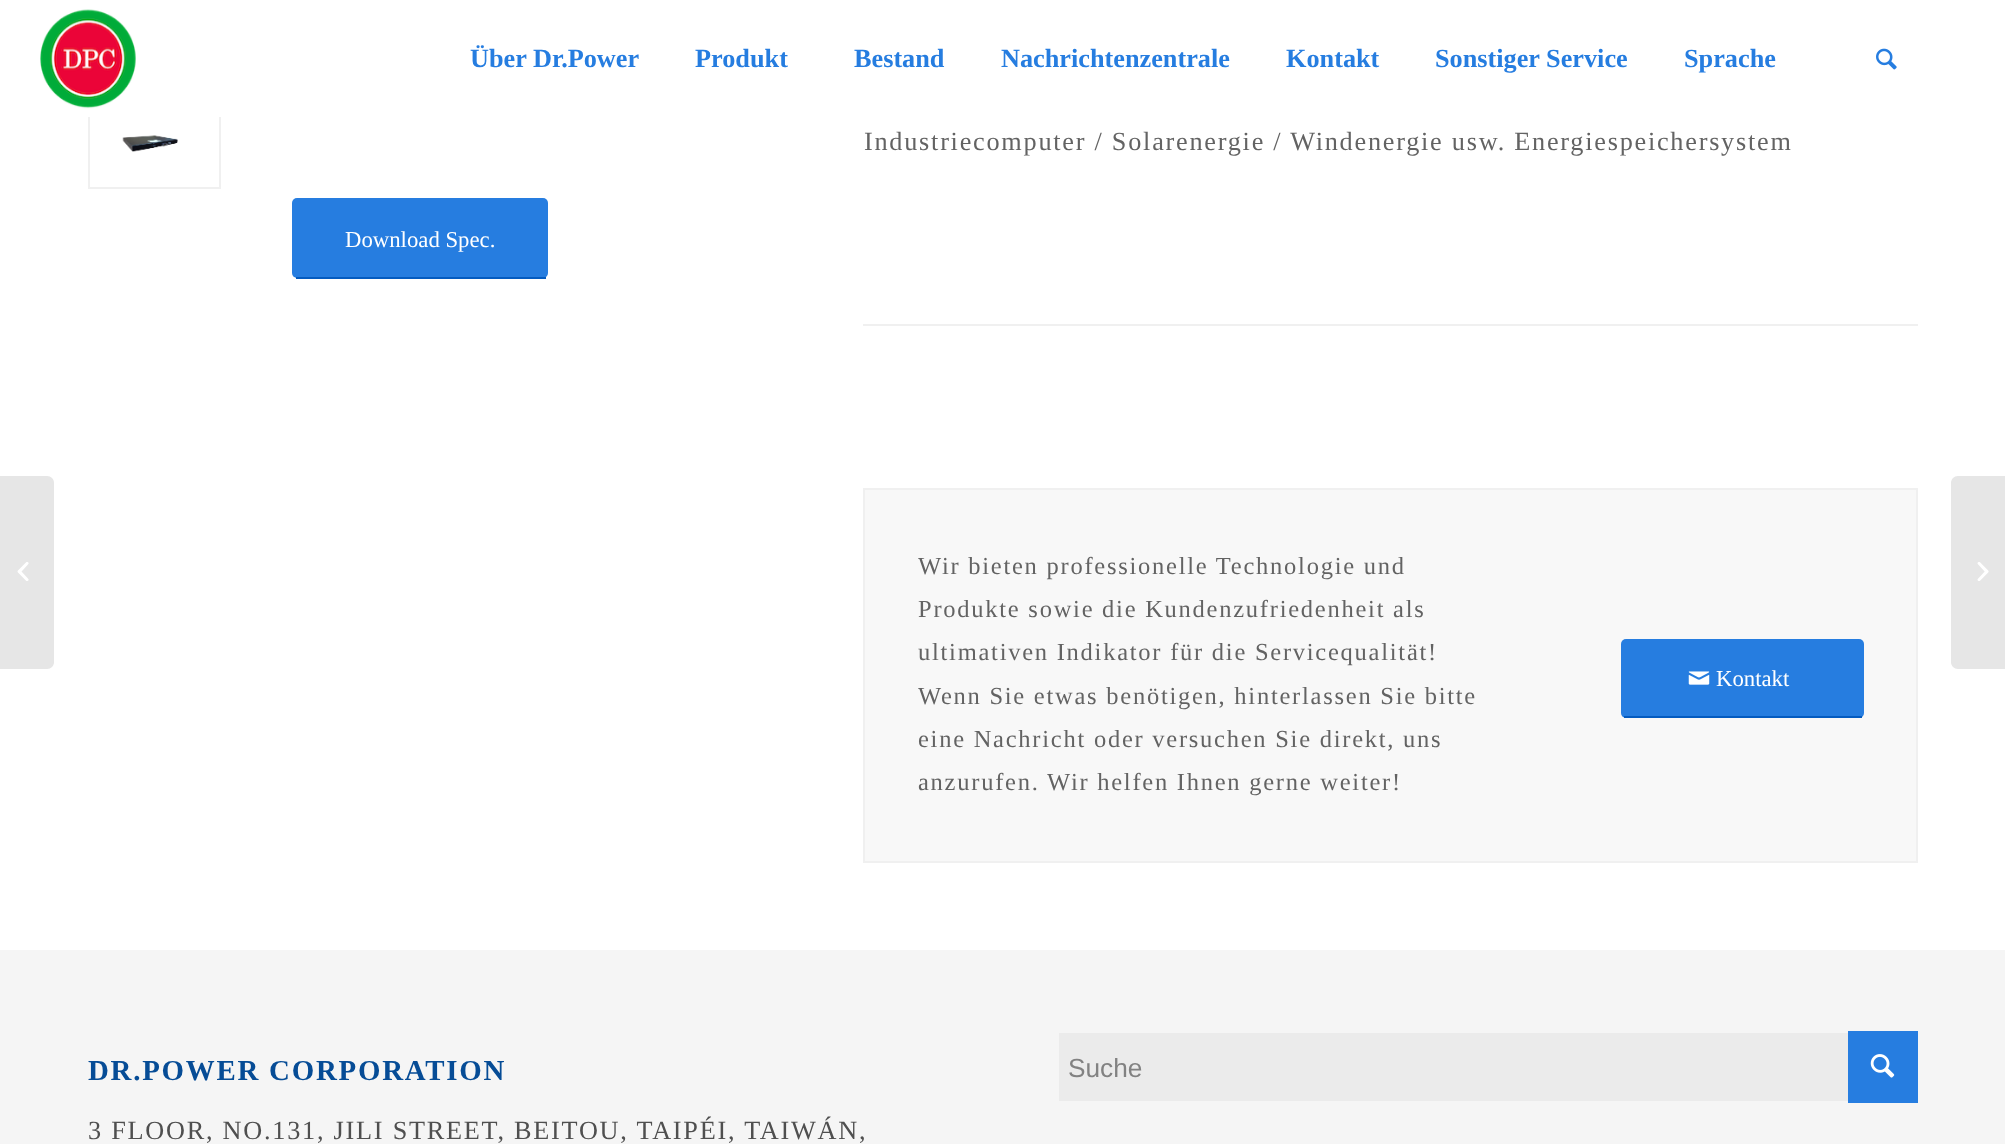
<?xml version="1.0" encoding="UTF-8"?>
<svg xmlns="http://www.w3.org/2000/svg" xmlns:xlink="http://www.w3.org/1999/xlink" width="2005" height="1144">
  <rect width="100%" height="100%" fill="#ffffff" />
  <rect x="89" y="-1" width="664" height="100" fill="none" stroke="#f0f0f0" stroke-width="2" />
  <rect x="89" y="99" width="131" height="89" fill="none" stroke="#f0f0f0" stroke-width="2" />
  <rect x="88" width="666" height="117" fill="#ffffff" fill-opacity="0.95" />
  <image x="40" y="9" width="96" height="100" xlink:href="image1.png" />
  <image x="1876" y="48" width="21" height="22" xlink:href="image2.png" />
  <path d="M 0 476 h 47 c 4 0 7 3 7 7 v 179 c 0 4 -3 7 -7 7 h -47 z" fill="#e6e6e6" />
  <image x="17" y="562" width="12" height="19" xlink:href="image3.png" />
  <image x="122" y="135" width="56" height="17" xlink:href="image4.png" />
  <rect x="292" y="198" width="256" height="80" rx="5" fill="#267de0" />
  <rect x="296" y="277" width="250" height="2" fill="#045bc0" />
  <rect x="863" y="324" width="1055" height="2" fill="#f0f0f0" />
  <rect x="864" y="489" width="1053" height="373" fill="#f8f8f8" stroke="#f0f0f0" stroke-width="2" />
  <rect x="1621" y="639" width="243" height="79" rx="5" fill="#267de0" />
  <rect x="1624" y="716" width="238" height="2" fill="#045bc0" />
  <image x="1688" y="671" width="22" height="14" xlink:href="image5.png" />
  <rect y="950" width="2005" height="194" fill="#f5f5f5" />
  <rect x="1059" y="1033" width="789" height="68" fill="#ebebeb" />
  <rect x="1848" y="1031" width="70" height="72" fill="#267de0" />
  <image x="1870" y="1054" width="25" height="24" xlink:href="image6.png" />
  <path d="M 1958 476 h 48 v 193 h -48 c -4 0 -7 -3 -7 -7 v -179 c 0 -4 3 -7 7 -7 z" fill="#e6e6e6" />
  <image x="1977" y="562" width="12" height="19" xlink:href="image7.png" />
  <text x="470" y="67" style="font-family: Liberation Serif; font-size: 26.25px; font-weight: bold; fill: #267de0">Über Dr.Power</text>
  <text x="695" y="67" style="font-family: Liberation Serif; font-size: 26.25px; font-weight: bold; fill: #267de0">Produkt</text>
  <text x="854" y="67" style="font-family: Liberation Serif; font-size: 26.25px; font-weight: bold; fill: #267de0">Bestand</text>
  <text x="1001" y="67" style="font-family: Liberation Serif; font-size: 26.25px; font-weight: bold; fill: #267de0">Nachrichtenzentrale</text>
  <text x="1286" y="67" style="font-family: Liberation Serif; font-size: 26.25px; font-weight: bold; fill: #267de0">Kontakt</text>
  <text x="1435" y="67" style="font-family: Liberation Serif; font-size: 26.25px; font-weight: bold; fill: #267de0">Sonstiger Service</text>
  <text x="1684" y="67" style="font-family: Liberation Serif; font-size: 26.25px; font-weight: bold; fill: #267de0">Sprache</text>
  <text x="345" y="247" style="font-family: Liberation Serif; font-size: 22.75px; fill: #ffffff">Download Spec.</text>
  <text x="864" y="150" style="font-family: Liberation Serif; font-size: 26.25px; letter-spacing: 1.75px; fill: #636363">Industriecomputer / Solarenergie / Windenergie usw. Energiespeichersystem</text>
  <text x="918" y="574" style="font-family: Liberation Serif; font-size: 24.5px; letter-spacing: 1.75px; fill: #636363">Wir bieten professionelle Technologie und</text>
  <text x="918" y="617" style="font-family: Liberation Serif; font-size: 24.5px; letter-spacing: 1.75px; fill: #636363">Produkte sowie die Kundenzufriedenheit als</text>
  <text x="918" y="660" style="font-family: Liberation Serif; font-size: 24.5px; letter-spacing: 1.75px; fill: #636363">ultimativen Indikator für die Servicequalität!</text>
  <text x="918" y="704" style="font-family: Liberation Serif; font-size: 24.5px; letter-spacing: 1.75px; fill: #636363">Wenn Sie etwas benötigen, hinterlassen Sie bitte</text>
  <text x="918" y="747" style="font-family: Liberation Serif; font-size: 24.5px; letter-spacing: 1.75px; fill: #636363">eine Nachricht oder versuchen Sie direkt, uns</text>
  <text x="918" y="790" style="font-family: Liberation Serif; font-size: 24.5px; letter-spacing: 1.75px; fill: #636363">anzurufen. Wir helfen Ihnen gerne weiter!</text>
  <text x="1716" y="686" style="font-family: Liberation Serif; font-size: 22.75px; fill: #ffffff">Kontakt</text>
  <text x="88" y="1080" style="font-family: Liberation Serif; font-size: 28.9px; font-weight: bold; letter-spacing: 1.75px; fill: #064c96">DR.POWER CORPORATION</text>
  <text x="88" y="1139" style="font-family: Liberation Serif; font-size: 26.25px; letter-spacing: 1.75px; fill: #4f4f4f">3 FLOOR, NO.131, JILI STREET, BEITOU, TAIPÉI, TAIWÁN,</text>
  <text x="1068" y="1077" style="font-family: Liberation Sans; font-size: 26.25px; fill: #828282">Suche</text>
</svg>
